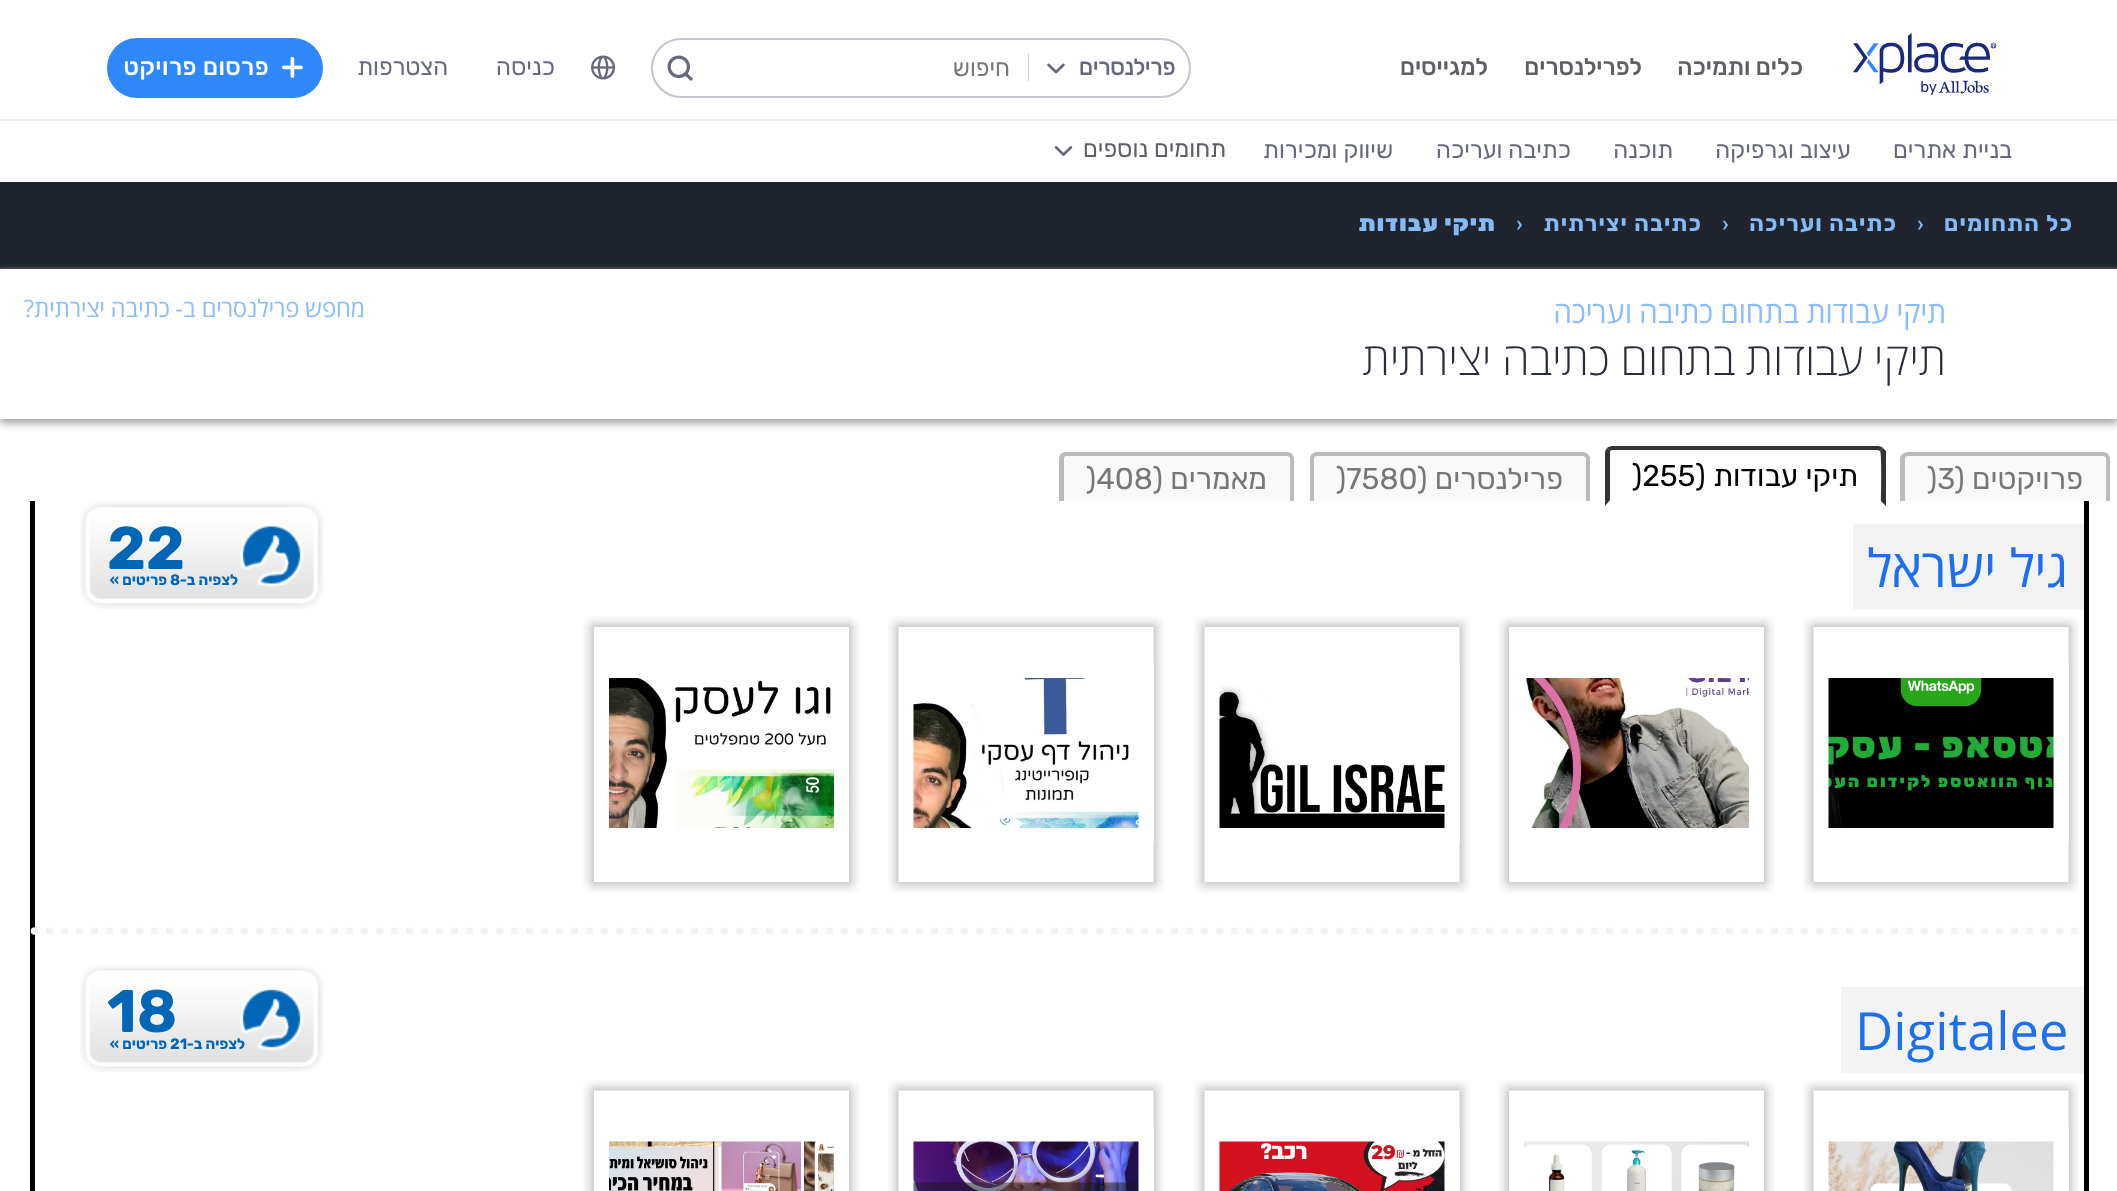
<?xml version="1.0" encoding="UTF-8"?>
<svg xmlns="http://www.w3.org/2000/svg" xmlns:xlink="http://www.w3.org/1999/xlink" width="2117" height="1191">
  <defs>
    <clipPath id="clip1"><path d="M 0 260 h 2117 v 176 h -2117 z m 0 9 h 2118 v 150 h -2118 z" clip-rule="evenodd" /></clipPath>
  </defs>
  <rect width="100%" height="100%" fill="#ffffff" />
  <rect y="182" width="2117" height="85" fill="#20242f" />
  <rect width="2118" height="182" fill="#000000" fill-opacity="0.15" filter="blur(7.5px)" />
  <rect width="2117" height="182" fill="#ffffff" />
  <image x="1853" y="33" width="144" height="62" xlink:href="image1.png" />
  <rect x="652" y="39" width="538" height="58" rx="29" fill="none" stroke="#c5c6cd" stroke-width="2" />
  <image x="1047" y="63" width="18" height="11" xlink:href="image2.png" />
  <rect x="1028" y="54" width="1" height="27" fill="#cbccd2" />
  <image x="667" y="55" width="26" height="26" xlink:href="image3.png" />
  <image x="591" y="55" width="25" height="25" xlink:href="image4.png" />
  <rect x="107" y="38" width="216" height="60" rx="30" fill="#2f89fc" />
  <image x="281" y="56" width="22" height="22" xlink:href="image5.png" />
  <rect y="119" width="2117" height="2" fill="#ebecee" />
  <image x="1054" y="146" width="19" height="10" xlink:href="image6.png" />
  <rect y="267" width="2117" height="2" fill="#323847" />
  <g clip-path="url(#clip1)">
    <rect y="273" width="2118" height="150" fill="#999999" filter="blur(4px)" />
  </g>
  <path d="M 1909 452 h 194 c 4.5 0 8 3.5 8 8 v 41 h -210 v -41 c 0 -4.5 3.5 -8 8 -8 z" fill="#f9f9f9" />
  <path d="M 1908 452 h 195 c 4 0 7 3 7 7 v 42 h -210 v -42 c 0 -4 4 -7 8 -7 z m 0 4 h 195 c 2 0 3 1 3 3 v 42 h -201 v -42 c 0 -2 1 -3 3 -3 z" fill="#bbbbbb" fill-rule="evenodd" />
  <path d="M 1612 446 c -2 0 -4 1 -5 2 l 3 3 l 2 -1 h 266 l 2 1 l 3 -3 c -1 -1 -3 -2 -5 -2 z" fill="#333333" />
  <path d="M 1883 448 l 3 3 v 55 l -5 -5 c 0 -6 1 -48 -1 -50 z" fill="#333333" />
  <path d="M 1605 506 l 5 -6 v -47 v -2 l -3 -3 c -1 1 -2 3 -2 5 z" fill="#333333" />
  <path d="M 1318 452 h 264 c 4.5 0 8 3.5 8 8 v 41 h -280 v -41 c 0 -4.5 3.5 -8 8 -8 z" fill="#f9f9f9" />
  <path d="M 1317 452 h 265 c 5 0 8 3 8 7 v 42 h -280 v -42 c 0 -4 3 -7 7 -7 z m 0 4 h 265 c 2 0 4 1 4 3 v 42 h -272 v -42 c 0 -2 1 -3 3 -3 z" fill="#bbbbbb" fill-rule="evenodd" />
  <path d="M 1067 452 h 220 c 4.5 0 8 3.5 8 8 v 41 h -236 v -41 c 0 -4.5 3.5 -8 8 -8 z" fill="#f9f9f9" />
  <path d="M 1066 452 h 221 c 4 0 7 3 7 7 v 42 h -235 v -42 c 0 -4 3 -7 7 -7 z m 0 4 h 221 c 2 0 3 1 3 3 v 42 h -226 v -42 c 0 -2 1 -3 2 -3 z" fill="#bbbbbb" fill-rule="evenodd" />
  <rect x="2084" y="501" width="5" height="690" fill="#000000" />
  <rect x="30" y="501" width="5" height="690" fill="#000000" />
  <path d="M 34.5 931 h 2049" fill="none" stroke="#f3f3f3" stroke-width="7.5" stroke-linecap="round" stroke-dasharray="0 15" />
  <rect x="1853" y="524" width="231" height="85" fill="#f3f3f3" />
  <image x="80" y="501" width="244" height="108" xlink:href="image7.png" />
  <image x="1813" y="616" width="256" height="11" xlink:href="image9.png" />
  <image x="2068" y="616" width="11" height="11" xlink:href="image8.png" />
  <image x="1803" y="616" width="11" height="11" xlink:href="image10.png" />
  <image x="2068" y="627" width="11" height="255" xlink:href="image11.png" />
  <rect x="1821.5" y="670.5" width="240" height="165" fill="none" stroke="#ffffff" stroke-width="15" />
  <image x="1828" y="678" width="226" height="150" xlink:href="image12.png" />
  <image x="1803" y="627" width="11" height="255" xlink:href="image13.png" />
  <image x="1813" y="882" width="256" height="11" xlink:href="image15.png" />
  <image x="2068" y="882" width="11" height="11" xlink:href="image14.png" />
  <image x="1803" y="882" width="11" height="11" xlink:href="image16.png" />
  <image x="1764" y="616" width="11" height="11" xlink:href="image17.png" />
  <image x="1509" y="616" width="255" height="11" xlink:href="image18.png" />
  <image x="1498" y="616" width="11" height="11" xlink:href="image19.png" />
  <image x="1764" y="627" width="11" height="255" xlink:href="image20.png" />
  <image x="1525" y="678" width="224" height="150" xlink:href="image21.png" />
  <image x="1498" y="627" width="11" height="255" xlink:href="image22.png" />
  <image x="1764" y="882" width="11" height="11" xlink:href="image23.png" />
  <image x="1509" y="882" width="255" height="11" xlink:href="image24.png" />
  <image x="1498" y="882" width="11" height="11" xlink:href="image25.png" />
  <image x="1204" y="616" width="256" height="11" xlink:href="image9.png" />
  <image x="1459" y="616" width="11" height="11" xlink:href="image8.png" />
  <image x="1194" y="616" width="11" height="11" xlink:href="image26.png" />
  <image x="1459" y="627" width="11" height="255" xlink:href="image11.png" />
  <rect x="1212.5" y="670.5" width="240" height="165" fill="none" stroke="#ffffff" stroke-width="15" />
  <image x="1219" y="686" width="226" height="142" xlink:href="image27.png" />
  <image x="1194" y="627" width="11" height="255" xlink:href="image28.png" />
  <image x="1204" y="882" width="256" height="11" xlink:href="image15.png" />
  <image x="1459" y="882" width="11" height="11" xlink:href="image14.png" />
  <image x="1194" y="882" width="11" height="11" xlink:href="image29.png" />
  <image x="898" y="616" width="256" height="11" xlink:href="image9.png" />
  <image x="1153" y="616" width="11" height="11" xlink:href="image8.png" />
  <image x="888" y="616" width="11" height="11" xlink:href="image10.png" />
  <image x="1153" y="627" width="11" height="255" xlink:href="image11.png" />
  <rect x="906.5" y="670.5" width="240" height="165" fill="none" stroke="#ffffff" stroke-width="15" />
  <image x="913" y="678" width="226" height="150" xlink:href="image30.png" />
  <image x="888" y="627" width="11" height="255" xlink:href="image13.png" />
  <image x="898" y="882" width="256" height="11" xlink:href="image15.png" />
  <image x="1153" y="882" width="11" height="11" xlink:href="image14.png" />
  <image x="888" y="882" width="11" height="11" xlink:href="image16.png" />
  <image x="849" y="616" width="11" height="11" xlink:href="image17.png" />
  <image x="594" y="616" width="255" height="11" xlink:href="image18.png" />
  <image x="583" y="616" width="11" height="11" xlink:href="image19.png" />
  <image x="849" y="627" width="11" height="255" xlink:href="image20.png" />
  <image x="609" y="678" width="225" height="150" xlink:href="image31.png" />
  <image x="583" y="627" width="11" height="255" xlink:href="image22.png" />
  <image x="849" y="882" width="11" height="11" xlink:href="image23.png" />
  <image x="594" y="882" width="255" height="11" xlink:href="image24.png" />
  <image x="583" y="882" width="11" height="11" xlink:href="image25.png" />
  <rect x="1841" y="987" width="243" height="86" fill="#f3f3f3" />
  <image x="80" y="965" width="244" height="107" xlink:href="image32.png" />
  <image x="1813" y="1080" width="256" height="11" xlink:href="image34.png" />
  <image x="2068" y="1090" width="11" height="101" xlink:href="image36.png" />
  <image x="2068" y="1080" width="11" height="11" xlink:href="image33.png" />
  <image x="1803" y="1090" width="11" height="101" xlink:href="image38.png" />
  <image x="1803" y="1080" width="11" height="11" xlink:href="image35.png" />
  <rect x="1821.5" y="1134.5" width="240" height="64" fill="none" stroke="#ffffff" stroke-width="15" />
  <image x="1828" y="1141" width="226" height="50" xlink:href="image37.png" />
  <image x="1764" y="1090" width="11" height="101" xlink:href="image42.png" />
  <image x="1764" y="1080" width="11" height="11" xlink:href="image39.png" />
  <image x="1509" y="1080" width="255" height="11" xlink:href="image40.png" />
  <image x="1498" y="1090" width="11" height="101" xlink:href="image44.png" />
  <image x="1498" y="1080" width="11" height="11" xlink:href="image41.png" />
  <image x="1524" y="1141" width="225" height="50" xlink:href="image43.png" />
  <image x="1204" y="1080" width="256" height="11" xlink:href="image34.png" />
  <image x="1459" y="1090" width="11" height="101" xlink:href="image36.png" />
  <image x="1459" y="1080" width="11" height="11" xlink:href="image33.png" />
  <image x="1194" y="1090" width="11" height="101" xlink:href="image47.png" />
  <image x="1194" y="1080" width="11" height="11" xlink:href="image45.png" />
  <rect x="1212.5" y="1134.5" width="240" height="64" fill="none" stroke="#ffffff" stroke-width="15" />
  <image x="1219" y="1141" width="226" height="50" xlink:href="image46.png" />
  <image x="898" y="1080" width="256" height="11" xlink:href="image34.png" />
  <image x="1153" y="1090" width="11" height="101" xlink:href="image36.png" />
  <image x="1153" y="1080" width="11" height="11" xlink:href="image33.png" />
  <image x="888" y="1090" width="11" height="101" xlink:href="image38.png" />
  <image x="888" y="1080" width="11" height="11" xlink:href="image35.png" />
  <rect x="906.5" y="1134.5" width="240" height="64" fill="none" stroke="#ffffff" stroke-width="15" />
  <image x="913" y="1141" width="226" height="50" xlink:href="image48.png" />
  <image x="849" y="1090" width="11" height="101" xlink:href="image42.png" />
  <image x="849" y="1080" width="11" height="11" xlink:href="image39.png" />
  <image x="594" y="1080" width="255" height="11" xlink:href="image40.png" />
  <image x="583" y="1090" width="11" height="101" xlink:href="image44.png" />
  <image x="583" y="1080" width="11" height="11" xlink:href="image41.png" />
  <image x="609" y="1141" width="225" height="50" xlink:href="image49.png" />
  <text x="1803" y="75" style="font-family: Rubik; font-size: 24px; font-weight: 500; direction: rtl; fill: #5e5f64">כלים ותמיכה</text>
  <text x="1642" y="75" style="font-family: Rubik; font-size: 24px; font-weight: 500; direction: rtl; fill: #5e5f64">לפרילנסרים</text>
  <text x="1488" y="75" style="font-family: Rubik; font-size: 24px; font-weight: 500; direction: rtl; fill: #5e5f64">למגייסים</text>
  <text x="1175" y="75" style="font-family: 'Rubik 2'; font-size: 22.5px; font-weight: bold; direction: rtl; fill: #66697a">פרילנסרים</text>
  <text x="1010" y="76" style="font-family: 'Rubik 2'; font-size: 24px; direction: rtl; fill: #777777">חיפוש</text>
  <text x="555" y="75" style="font-family: Rubik; font-size: 24px; direction: rtl; fill: #66697a">כניסה</text>
  <text x="448" y="75" style="font-family: 'Rubik 2'; font-size: 24px; direction: rtl; fill: #66697a">הצטרפות</text>
  <text x="269" y="75" style="font-family: 'Rubik 2'; font-size: 24px; font-weight: 500; letter-spacing: 0.5px; direction: rtl; fill: #ffffff">פרסום פרויקט</text>
  <text x="2012" y="158" style="font-family: 'Rubik 2'; font-size: 24px; direction: rtl; fill: #66697a">בניית אתרים</text>
  <text x="1851" y="158" style="font-family: 'Rubik 2'; font-size: 24px; direction: rtl; fill: #66697a">עיצוב וגרפיקה</text>
  <text x="1673" y="158" style="font-family: 'Rubik 2'; font-size: 24px; direction: rtl; fill: #66697a">תוכנה</text>
  <text x="1571" y="158" style="font-family: 'Rubik 2'; font-size: 24px; direction: rtl; fill: #66697a">כתיבה ועריכה</text>
  <text x="1393" y="158" style="font-family: 'Rubik 2'; font-size: 24px; direction: rtl; fill: #66697a">שיווק ומכירות</text>
  <text x="1226" y="157" style="font-family: 'Rubik 2'; font-size: 24px; direction: rtl; fill: #5e5f64">תחומים נוספים</text>
  <text x="2073" y="231" style="font-family: Rubik; font-size: 22.5px; font-weight: bold; letter-spacing: 1.25px; direction: rtl; fill: #85baf5">כל התחומים</text>
  <text x="1917" y="231" style="font-family: Roboto; font-size: 22.5px; font-weight: 600; letter-spacing: 1.25px; fill: #85baf5">›</text>
  <text x="1897" y="231" style="font-family: Rubik; font-size: 22.5px; font-weight: bold; letter-spacing: 1.25px; direction: rtl; fill: #85baf5">כתיבה ועריכה</text>
  <text x="1722" y="231" style="font-family: Roboto; font-size: 22.5px; font-weight: 600; letter-spacing: 1.25px; fill: #85baf5">›</text>
  <text x="1702" y="231" style="font-family: Rubik; font-size: 22.5px; font-weight: bold; letter-spacing: 1.25px; direction: rtl; fill: #85baf5">כתיבה יצירתית</text>
  <text x="1516" y="231" style="font-family: Roboto; font-size: 22.5px; font-weight: 600; letter-spacing: 1.25px; fill: #85baf5">›</text>
  <text x="1496" y="231" style="font-family: Rubik; font-size: 22.5px; font-weight: 900; letter-spacing: 1.25px; direction: rtl; fill: #85baf5">תיקי עבודות</text>
  <text x="1946" y="323" word-spacing="-0.5" style="font-family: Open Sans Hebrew; font-size: 30px; direction: rtl; fill: #89bdff">תיקי עבודות בתחום כתיבה ועריכה</text>
  <text x="365" y="317" word-spacing="-0.5" style="font-family: Open Sans Hebrew; font-size: 24px; direction: rtl; fill: #89bdff">מחפש פרילנסרים ב- כתיבה יצירתית?</text>
  <text x="1946" y="375" word-spacing="-1" style="font-family: Open Sans Hebrew; font-size: 45px; font-weight: 300; direction: rtl; fill: #282d39">תיקי עבודות בתחום כתיבה יצירתית</text>
  <text x="2083" y="489" style="font-family: Rubik; font-size: 30px; direction: rtl; fill: #777777">פרויקטים (</text>
  <text x="1927" y="489" style="font-family: Rubik; font-size: 30px; fill: #777777">)3</text>
  <text x="1858" y="486" style="font-family: Rubik; font-size: 30px; direction: rtl; fill: #000000">תיקי עבודות (</text>
  <text x="1632" y="486" style="font-family: Rubik; font-size: 30px; fill: #000000">)255</text>
  <text x="1563" y="489" style="font-family: Rubik; font-size: 30px; direction: rtl; fill: #777777">פרילנסרים (</text>
  <text x="1336" y="489" style="font-family: Rubik; font-size: 30px; fill: #777777">)7580</text>
  <text x="1267" y="489" style="font-family: Rubik; font-size: 30px; direction: rtl; fill: #777777">מאמרים (</text>
  <text x="1086" y="489" style="font-family: Rubik; font-size: 30px; fill: #777777">)408</text>
  <text x="2068" y="587" style="font-family: Open Sans Hebrew; font-size: 52.5px; direction: rtl; fill: #1c70f0">גיל ישראל</text>
  <text x="107" y="569" style="font-family: Rubik; font-size: 60px; font-weight: bold; fill: #0166b6">22</text>
  <text x="238" y="585" style="font-family: Rubik; font-size: 15px; font-weight: bold; direction: rtl; fill: #0166b6">לצפיה ב-</text>
  <text x="170" y="585" style="font-family: Rubik; font-size: 15px; font-weight: bold; fill: #0166b6">8</text>
  <text x="167" y="585" style="font-family: Rubik; font-size: 15px; font-weight: bold; direction: rtl; fill: #0166b6">פריטים »</text>
  <text x="1855" y="1050" style="font-family: Open Sans Hebrew; font-size: 52.5px; fill: #1c70f0">Digitalee</text>
  <text x="107" y="1032" style="font-family: Rubik; font-size: 60px; font-weight: bold; fill: #0166b6">18</text>
  <text x="245" y="1049" style="font-family: Rubik; font-size: 15px; font-weight: bold; direction: rtl; fill: #0166b6">לצפיה ב-</text>
  <text x="170" y="1049" style="font-family: Rubik; font-size: 15px; font-weight: bold; fill: #0166b6">21</text>
  <text x="167" y="1049" style="font-family: Rubik; font-size: 15px; font-weight: bold; direction: rtl; fill: #0166b6">פריטים »</text>
</svg>
